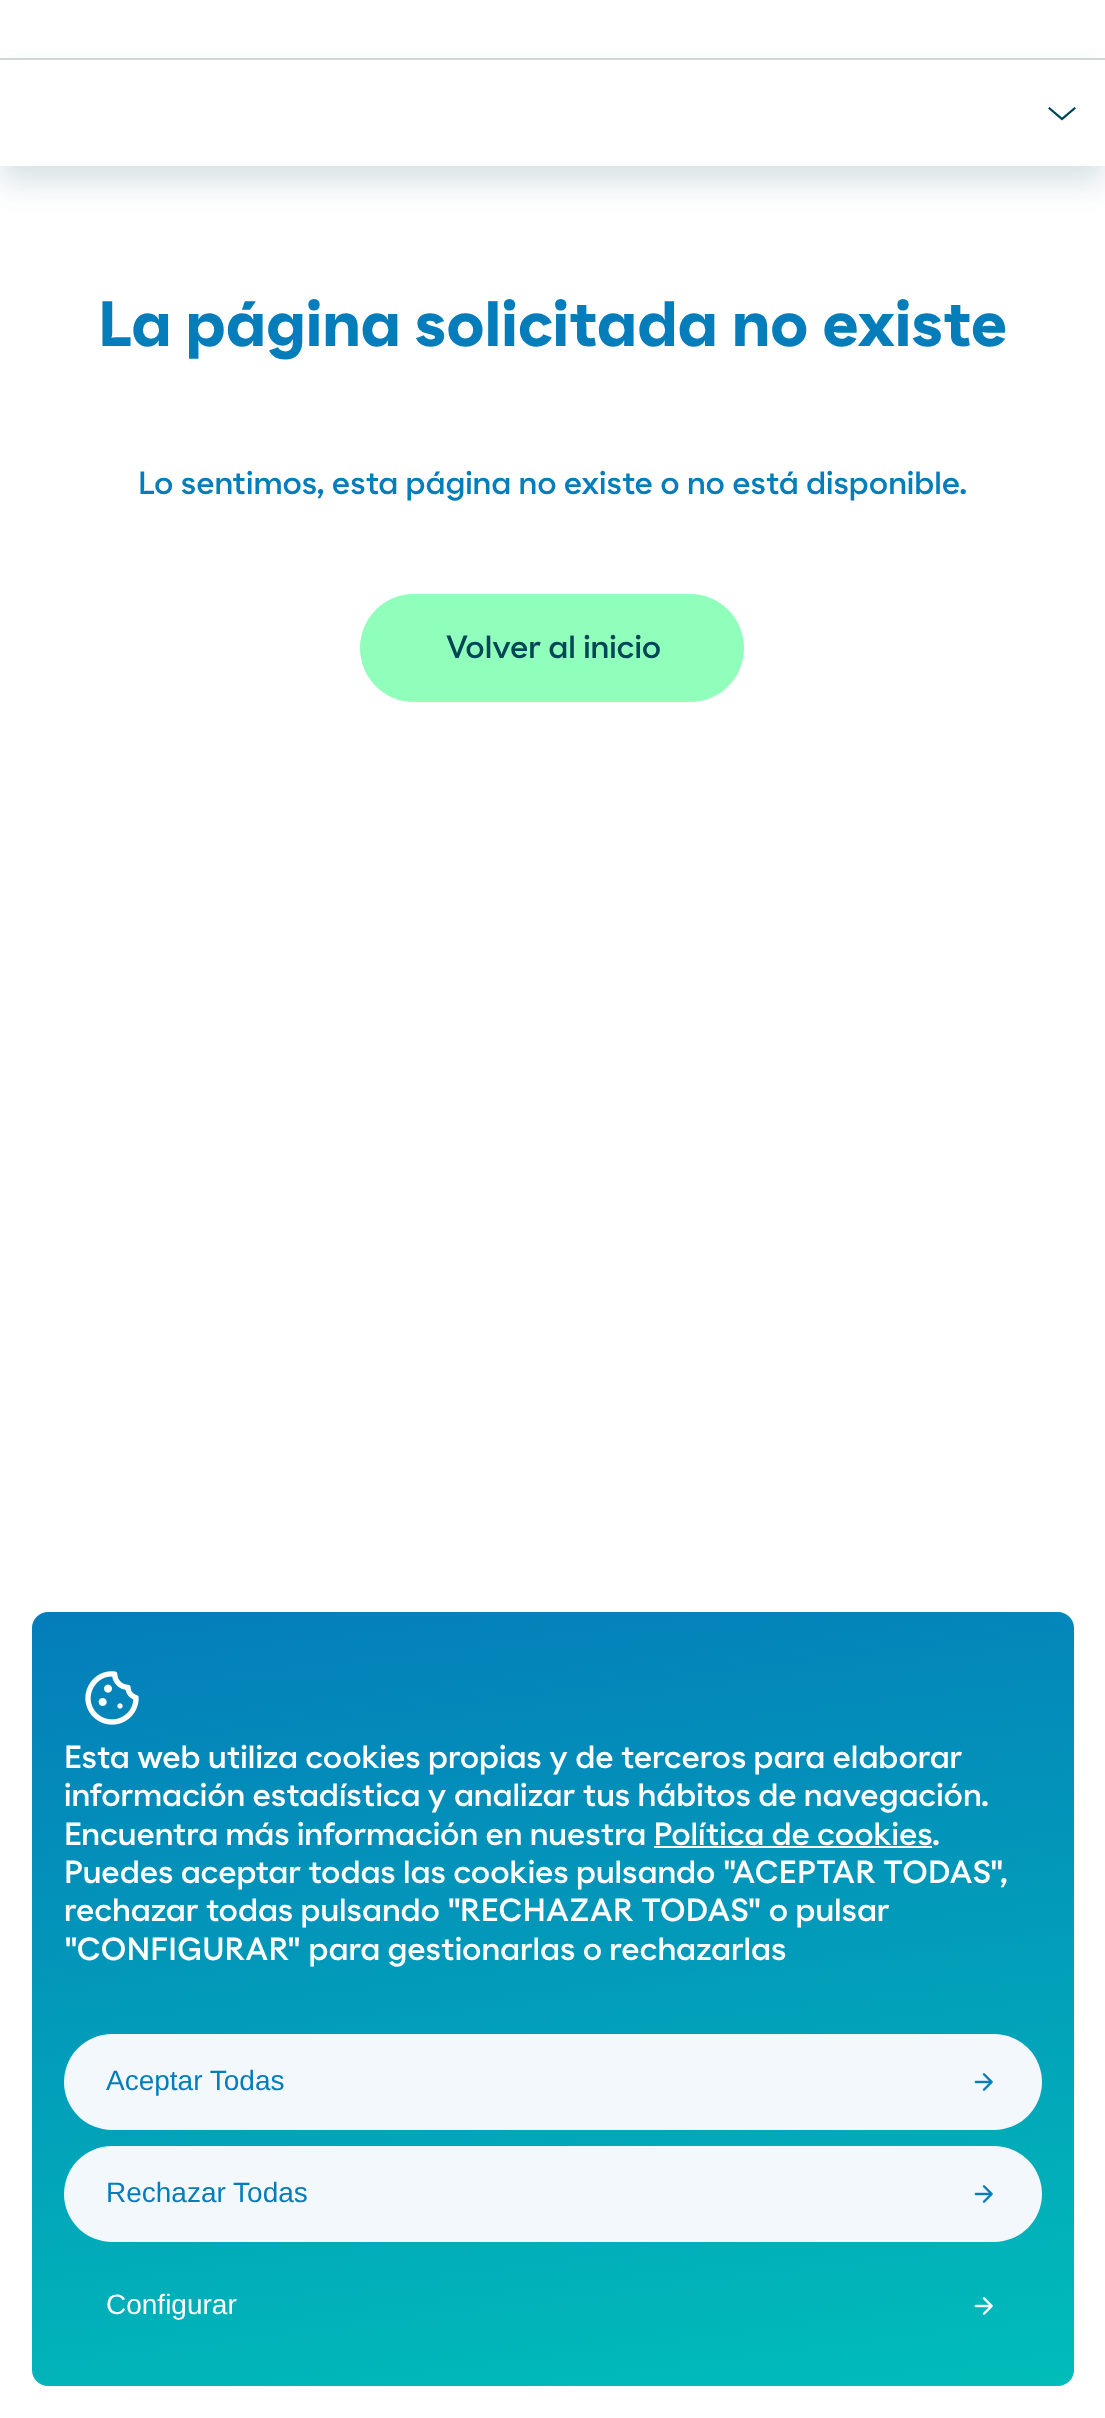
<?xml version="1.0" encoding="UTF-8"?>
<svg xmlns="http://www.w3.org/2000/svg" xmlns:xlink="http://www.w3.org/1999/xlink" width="1105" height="2418">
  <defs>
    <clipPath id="clip1"><path d="M 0 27 h 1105 v 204 h -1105 z m 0 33 h 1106 v 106 h -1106 z" clip-rule="evenodd" /></clipPath>
    <linearGradient id="g1" gradientUnits="userSpaceOnUse" x1="608" y1="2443" x2="498" y2="1555"><stop offset="0" stop-color="#00bdb9" /><stop offset="1" stop-color="#047dba" /></linearGradient>
  </defs>
  <rect width="100%" height="100%" fill="#ffffff" />
  <rect y="58" width="1105" height="2" fill="#d8d8d8" />
  <g clip-path="url(#clip1)">
    <rect y="76" width="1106" height="106" fill="#004656" fill-opacity="0.16" filter="blur(16px)" />
  </g>
  <path d="M 1049.5 107 l -1.5 1.5 l 14 12 l 14 -12 l -1.5 -1.5 l -12.5 10.5 z" fill="#004656" />
  <rect x="360" y="594" width="384" height="108" rx="54" fill="#90ffbb" />
  <rect x="32" y="1612" width="1042" height="774" rx="16" fill="url(#g1)" />
  <image x="85" y="1671" width="54" height="54" xlink:href="image1.png" />
  <rect x="654" y="1846" width="278" height="2" fill="#ffffff" />
  <rect x="64" y="2034" width="978" height="96" rx="48" fill="#f2f8fc" />
  <image x="974" y="2073" width="19" height="18" xlink:href="image2.png" />
  <rect x="64" y="2146" width="978" height="96" rx="48" fill="#f2f8fc" />
  <image x="974" y="2185" width="19" height="18" xlink:href="image2.png" />
  <image x="974" y="2297" width="19" height="18" xlink:href="image3.png" />
  <text x="98" y="346" style="font-family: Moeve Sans; font-size: 64px; font-weight: bold; fill: #047dba">La página solicitada no existe</text>
  <text x="138" y="494" style="font-family: Moeve Sans; font-size: 32px; fill: #047dba">Lo sentimos, esta página no existe o no está disponible.</text>
  <text x="445" y="658" style="font-family: Moeve Sans; font-size: 32px; fill: #004656">Volver al inicio</text>
  <text x="64" y="1768" style="font-family: Moeve Sans; font-size: 32px; fill: #ffffff">Esta web utiliza cookies propias y de terceros para elaborar</text>
  <text x="64" y="1806" style="font-family: Moeve Sans; font-size: 32px; fill: #ffffff">información estadística y analizar tus hábitos de navegación.</text>
  <text x="64" y="1845" style="font-family: Moeve Sans; font-size: 32px; fill: #ffffff">Encuentra más información en nuestra Política de cookies</text>
  <text x="932" y="1845" style="font-family: Moeve Sans; font-size: 32px; fill: #ffffff">.</text>
  <text x="64" y="1883" style="font-family: Moeve Sans; font-size: 32px; fill: #ffffff">Puedes aceptar todas las cookies pulsando "ACEPTAR TODAS",</text>
  <text x="64" y="1921" style="font-family: Moeve Sans; font-size: 32px; fill: #ffffff">rechazar todas pulsando "RECHAZAR TODAS" o pulsar</text>
  <text x="64" y="1960" style="font-family: Moeve Sans; font-size: 32px; fill: #ffffff">"CONFIGURAR" para gestionarlas o rechazarlas</text>
  <text x="106" y="2090" style="font-family: Liberation Sans; font-size: 28px; fill: #047dba">Aceptar Todas</text>
  <text x="106" y="2202" style="font-family: Liberation Sans; font-size: 28px; fill: #047dba">Rechazar Todas</text>
  <text x="106" y="2314" style="font-family: Liberation Sans; font-size: 28px; fill: #ffffff">Configurar</text>
</svg>
